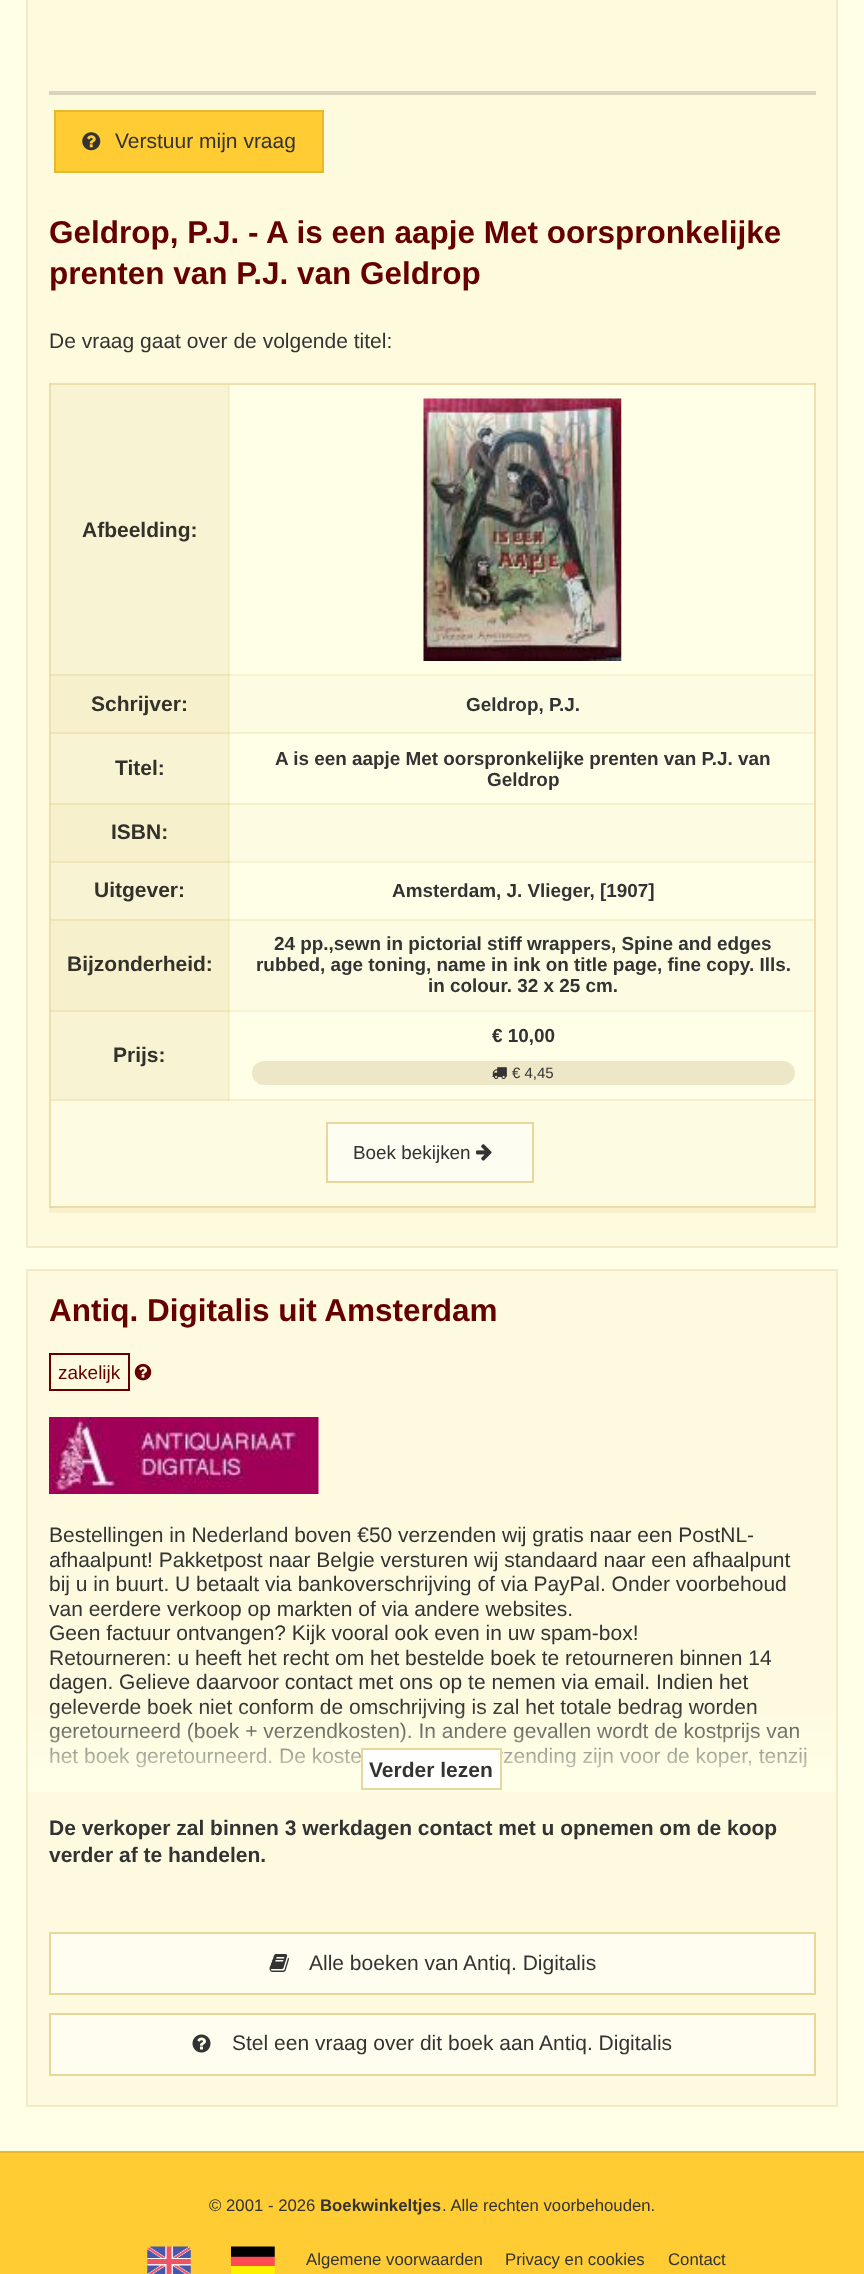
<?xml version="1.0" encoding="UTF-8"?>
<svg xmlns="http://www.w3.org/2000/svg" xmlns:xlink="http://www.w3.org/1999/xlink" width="864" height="2274">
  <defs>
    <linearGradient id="g1" gradientUnits="userSpaceOnUse" x1="431" y1="1705" x2="431" y2="1792"><stop offset="0" stop-color="#ffffe8" stop-opacity="0" /><stop offset="1" stop-color="#ffffe8" /></linearGradient>
  </defs>
  <rect width="100%" height="100%" fill="#ffffe8" />
  <rect x="28" width="808" height="1246" fill="#fdfadd" />
  <rect x="49" y="383" width="2" height="825" fill="#ede0ad" />
  <rect x="49" y="674" width="2" height="2" fill="#ebdca5" />
  <rect x="49" y="732" width="2" height="2" fill="#ebdca5" />
  <rect x="49" y="803" width="2" height="2" fill="#ebdca5" />
  <rect x="49" y="861" width="2" height="2" fill="#ebdca5" />
  <rect x="49" y="919" width="2" height="2" fill="#ebdca5" />
  <rect x="49" y="1010" width="2" height="2" fill="#ebdca5" />
  <rect x="49" y="1099" width="2" height="2" fill="#ebdca5" />
  <rect x="49" y="1206" width="767" height="2" fill="#ebdda8" />
  <rect x="49" y="1206" width="2" height="2" fill="#e9d8a0" />
  <rect x="814" y="1206" width="2" height="2" fill="#e9d8a0" />
  <rect x="27" y="-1" width="810" height="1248" fill="none" stroke="#f3eac8" stroke-width="2" />
  <rect x="49" y="91" width="767" height="4" fill="#d7d5bc" />
  <rect x="55" y="111" width="268" height="61" fill="#ffcc33" stroke="#e6b82e" stroke-width="2" />
  <image x="82" y="132" width="19" height="19" xlink:href="image1.png" />
  <path d="M 49 1208 v 5 h 767 v -824 v 819 z" fill="#f7f0ca" />
  <rect x="49" y="383" width="767" height="2" fill="#ede0ad" />
  <rect x="228" y="383" width="2" height="2" fill="#ebdda8" />
  <rect x="49" y="383" width="2" height="2" fill="#e9d9a1" />
  <rect x="814" y="383" width="2" height="2" fill="#e9d9a1" />
  <rect x="230" y="385" width="584" height="289" fill="#ffffe8" />
  <rect x="229" y="385" width="1" height="291" fill="#f8f3d1" />
  <rect x="228" y="674" width="588" height="2" fill="#f8f3d1" />
  <rect x="228" y="674" width="2" height="2" fill="#f0e5b6" />
  <rect x="814" y="385" width="2" height="291" fill="#eee1b0" />
  <rect x="814" y="674" width="2" height="2" fill="#ecdeaa" />
  <rect x="51" y="385" width="177" height="289" fill="#f8f3d2" />
  <rect x="51" y="674" width="178" height="2" fill="#f0e5b8" />
  <rect x="228" y="385" width="1" height="291" fill="#f3ebc2" />
  <rect x="228" y="674" width="1" height="2" fill="#ebdca6" />
  <image x="423" y="398" width="199" height="263" xlink:href="image2.png" />
  <rect x="230" y="676" width="584" height="56" fill="#fdfbe2" />
  <rect x="229" y="676" width="1" height="57" fill="#f7f0cd" />
  <rect x="228" y="732" width="588" height="1" fill="#f7f0cd" />
  <rect x="228" y="732" width="2" height="1" fill="#efe4b5" />
  <rect x="814" y="676" width="2" height="57" fill="#ede0ae" />
  <rect x="814" y="732" width="2" height="1" fill="#ebdda9" />
  <rect x="51" y="676" width="177" height="56" fill="#f7f0cd" />
  <rect x="51" y="732" width="178" height="1" fill="#f0e4b5" />
  <rect x="228" y="676" width="1" height="57" fill="#f2e9bf" />
  <rect x="228" y="732" width="1" height="1" fill="#ebdca6" />
  <rect x="230" y="734" width="584" height="69" fill="#ffffe8" />
  <rect x="228" y="733" width="588" height="1" fill="#f8f3d1" />
  <rect x="229" y="733" width="1" height="70" fill="#f8f3d1" />
  <rect x="228" y="733" width="2" height="1" fill="#f3ebc1" />
  <rect x="814" y="733" width="2" height="70" fill="#eee1b0" />
  <rect x="814" y="733" width="2" height="1" fill="#ecdeaa" />
  <rect x="51" y="734" width="177" height="69" fill="#f8f3d2" />
  <rect x="51" y="733" width="178" height="1" fill="#f0e5b8" />
  <rect x="228" y="733" width="1" height="70" fill="#f3ebc2" />
  <rect x="228" y="733" width="1" height="1" fill="#ecdeaa" />
  <rect x="230" y="805" width="584" height="56" fill="#fdfbe2" />
  <rect x="228" y="803" width="588" height="2" fill="#f7f0cd" />
  <rect x="229" y="803" width="1" height="58" fill="#f7f0cd" />
  <rect x="228" y="803" width="2" height="2" fill="#efe4b5" />
  <rect x="814" y="803" width="2" height="58" fill="#ede0ae" />
  <rect x="814" y="803" width="2" height="2" fill="#ebdda9" />
  <rect x="51" y="805" width="177" height="56" fill="#f7f0cd" />
  <rect x="51" y="803" width="178" height="2" fill="#f0e4b5" />
  <rect x="228" y="803" width="1" height="58" fill="#f2e9bf" />
  <rect x="228" y="803" width="1" height="2" fill="#ebdca6" />
  <rect x="230" y="863" width="584" height="56" fill="#ffffe8" />
  <rect x="228" y="861" width="588" height="2" fill="#f8f3d1" />
  <rect x="229" y="861" width="1" height="58" fill="#f8f3d1" />
  <rect x="228" y="861" width="2" height="2" fill="#f0e5b6" />
  <rect x="814" y="861" width="2" height="58" fill="#eee1b0" />
  <rect x="814" y="861" width="2" height="2" fill="#ecdeaa" />
  <rect x="51" y="863" width="177" height="56" fill="#f8f3d2" />
  <rect x="51" y="861" width="178" height="2" fill="#f0e5b8" />
  <rect x="228" y="861" width="1" height="58" fill="#f3ebc2" />
  <rect x="228" y="861" width="1" height="2" fill="#ebdca6" />
  <rect x="230" y="921" width="584" height="89" fill="#fdfbe2" />
  <rect x="228" y="919" width="588" height="2" fill="#f7f0cd" />
  <rect x="229" y="919" width="1" height="91" fill="#f7f0cd" />
  <rect x="228" y="919" width="2" height="2" fill="#efe4b5" />
  <rect x="814" y="919" width="2" height="91" fill="#ede0ae" />
  <rect x="814" y="919" width="2" height="2" fill="#ebdda9" />
  <rect x="51" y="921" width="177" height="89" fill="#f7f0cd" />
  <rect x="51" y="919" width="178" height="2" fill="#f0e4b5" />
  <rect x="228" y="919" width="1" height="91" fill="#f2e9bf" />
  <rect x="228" y="919" width="1" height="2" fill="#ebdca6" />
  <rect x="230" y="1012" width="584" height="87" fill="#ffffe8" />
  <rect x="228" y="1010" width="588" height="2" fill="#f8f3d1" />
  <rect x="229" y="1010" width="1" height="89" fill="#f8f3d1" />
  <rect x="228" y="1010" width="2" height="2" fill="#f0e5b6" />
  <rect x="814" y="1010" width="2" height="89" fill="#eee1b0" />
  <rect x="814" y="1010" width="2" height="2" fill="#ecdeaa" />
  <rect x="51" y="1012" width="177" height="87" fill="#f8f3d2" />
  <rect x="51" y="1010" width="178" height="2" fill="#f0e5b8" />
  <rect x="228" y="1010" width="1" height="89" fill="#f3ebc2" />
  <rect x="228" y="1010" width="1" height="2" fill="#ebdca6" />
  <rect x="252" y="1061" width="543" height="24" rx="12" fill="#ede7c7" />
  <image x="492" y="1067" width="15" height="13" xlink:href="image3.png" />
  <rect x="51" y="1101" width="763" height="105" fill="#fdfbe2" />
  <rect x="51" y="1099" width="178" height="2" fill="#f3e9c0" />
  <rect x="228" y="1099" width="588" height="2" fill="#f7f0cd" />
  <rect x="228" y="1099" width="2" height="2" fill="#f2e9bf" />
  <rect x="228" y="1099" width="1" height="2" fill="#ede0ae" />
  <rect x="814" y="1099" width="2" height="107" fill="#ede0ae" />
  <rect x="814" y="1099" width="2" height="2" fill="#ebdda9" />
  <rect x="327" y="1123" width="206" height="59" fill="#fefdf1" stroke="#e8d79d" stroke-width="2" />
  <image x="476" y="1144" width="16" height="17" xlink:href="image4.png" />
  <rect x="27" y="1270" width="810" height="836" fill="#fdfadf" stroke="#f3eac8" stroke-width="2" />
  <rect x="50" y="1354" width="79" height="36" fill="none" stroke="#660000" stroke-width="2" />
  <image x="134" y="1363" width="18" height="18" xlink:href="image5.png" />
  <image x="49" y="1417" width="270" height="77" xlink:href="image6.png" />
  <rect x="50" y="1933" width="765" height="61" fill="#fefdef" stroke="#e8d79d" stroke-width="2" />
  <image x="269" y="1954" width="20" height="18" xlink:href="image7.png" />
  <rect x="50" y="2014" width="765" height="61" fill="#fefdef" stroke="#e8d79d" stroke-width="2" />
  <image x="192" y="2034" width="19" height="19" xlink:href="image8.png" />
  <rect y="2153" width="864" height="121" fill="#ffcc33" />
  <rect y="2151" width="864" height="2" fill="#e6b82e" />
  <image x="147" y="2246" width="44" height="28" xlink:href="image9.png" />
  <image x="231" y="2246" width="44" height="28" xlink:href="image10.png" />
  <text x="115" y="148" style="font-family: Liberation Sans; font-size: 21px; fill: #333333">Verstuur mijn vraag</text>
  <text x="49" y="243" style="font-family: Liberation Sans; font-size: 31.5px; font-weight: bold; fill: #660000">Geldrop, P.J. - A is een aapje Met oorspronkelijke</text>
  <text x="49" y="284" style="font-family: Liberation Sans; font-size: 31.5px; font-weight: bold; fill: #660000">prenten van P.J. van Geldrop</text>
  <text x="49" y="348" style="font-family: Liberation Sans; font-size: 21px; fill: #333333">De vraag gaat over de volgende titel:</text>
  <text x="82" y="537" style="font-family: Liberation Sans; font-size: 21px; font-weight: bold; fill: #32312a">Afbeelding:</text>
  <text x="91" y="711" style="font-family: Liberation Sans; font-size: 21px; font-weight: bold; fill: #32312a">Schrijver:</text>
  <text x="466" y="711" style="font-family: Liberation Sans; font-size: 18.9px; font-weight: bold; fill: #333333">Geldrop, P.J.</text>
  <text x="115" y="775" style="font-family: Liberation Sans; font-size: 21px; font-weight: bold; fill: #32312a">Titel:</text>
  <text x="275" y="765" style="font-family: Liberation Sans; font-size: 18.9px; font-weight: bold; fill: #333333">A is een aapje Met oorspronkelijke prenten van P.J. van</text>
  <text x="487" y="786" style="font-family: Liberation Sans; font-size: 18.9px; font-weight: bold; fill: #333333">Geldrop</text>
  <text x="111" y="839" style="font-family: Liberation Sans; font-size: 21px; font-weight: bold; fill: #32312a">ISBN:</text>
  <text x="94" y="897" style="font-family: Liberation Sans; font-size: 21px; font-weight: bold; fill: #32312a">Uitgever:</text>
  <text x="392" y="897" style="font-family: Liberation Sans; font-size: 18.9px; font-weight: bold; fill: #333333">Amsterdam, J. Vlieger, [1907]</text>
  <text x="67" y="971" style="font-family: Liberation Sans; font-size: 21px; font-weight: bold; fill: #32312a">Bijzonderheid:</text>
  <text x="274" y="950" style="font-family: Liberation Sans; font-size: 18.9px; font-weight: bold; fill: #333333">24 pp.,sewn in pictorial stiff wrappers, Spine and edges</text>
  <text x="256" y="971" style="font-family: Liberation Sans; font-size: 18.9px; font-weight: bold; fill: #333333">rubbed, age toning, name in ink on title page, fine copy. Ills.</text>
  <text x="428" y="992" style="font-family: Liberation Sans; font-size: 18.9px; font-weight: bold; fill: #333333">in colour. 32 x 25 cm.</text>
  <text x="113" y="1062" style="font-family: Liberation Sans; font-size: 21px; font-weight: bold; fill: #32312a">Prijs:</text>
  <text x="492" y="1042" style="font-family: Liberation Sans; font-size: 18.9px; font-weight: bold; fill: #333333">€ 10,00</text>
  <text x="512" y="1078" style="font-family: Liberation Sans; font-size: 15px; fill: #333333">€ 4,45</text>
  <text x="353" y="1159" style="font-family: Liberation Sans; font-size: 18.9px; fill: #333333">Boek bekijken</text>
  <text x="49" y="1321" style="font-family: Liberation Sans; font-size: 31.5px; font-weight: bold; fill: #660000">Antiq. Digitalis uit Amsterdam</text>
  <text x="58" y="1379" style="font-family: Liberation Sans; font-size: 19px; fill: #660000">zakelijk</text>
  <text x="49" y="1542" style="font-family: Liberation Sans; font-size: 21px; fill: #333333">Bestellingen in Nederland boven €50 verzenden wij gratis naar een PostNL-</text>
  <text x="49" y="1567" style="font-family: Liberation Sans; font-size: 21px; fill: #333333">afhaalpunt! Pakketpost naar Belgie versturen wij standaard naar een afhaalpunt</text>
  <text x="49" y="1591" style="font-family: Liberation Sans; font-size: 21px; fill: #333333">bij u in buurt. U betaalt via bankoverschrijving of via PayPal. Onder voorbehoud</text>
  <text x="49" y="1616" style="font-family: Liberation Sans; font-size: 21px; fill: #333333">van eerdere verkoop op markten of via andere websites.</text>
  <text x="49" y="1640" style="font-family: Liberation Sans; font-size: 21px; fill: #333333">Geen factuur ontvangen? Kijk vooral ook even in uw spam-box!</text>
  <text x="49" y="1665" style="font-family: Liberation Sans; font-size: 21px; fill: #333333">Retourneren: u heeft het recht om het bestelde boek te retourneren binnen 14</text>
  <text x="49" y="1689" style="font-family: Liberation Sans; font-size: 21px; fill: #333333">dagen. Gelieve daarvoor contact met ons op te nemen via email. Indien het</text>
  <text x="49" y="1714" style="font-family: Liberation Sans; font-size: 21px; fill: #333333">geleverde boek niet conform de omschrijving is zal het totale bedrag worden</text>
  <text x="49" y="1738" style="font-family: Liberation Sans; font-size: 21px; fill: #333333">geretourneerd (boek + verzendkosten). In andere gevallen wordt de kostprijs van</text>
  <text x="49" y="1763" style="font-family: Liberation Sans; font-size: 21px; fill: #333333">het boek geretourneerd. De koste</text>
  <text x="496" y="1763" style="font-family: Liberation Sans; font-size: 21px; fill: #333333">rzending zijn voor de koper, tenzij</text>
  <rect x="28" y="1707" width="807" height="85" fill="url(#g1)" />
  <rect x="362" y="1749" width="139" height="40" fill="#ffffff" fill-opacity="0.9" stroke="#e8d79d" stroke-width="2" />
  <text x="369" y="1777" style="font-family: Liberation Sans; font-size: 21px; font-weight: bold; fill: #333333">Verder lezen</text>
  <text x="49" y="1835" style="font-family: Liberation Sans; font-size: 21px; font-weight: bold; fill: #333333">De verkoper zal binnen 3 werkdagen contact met u opnemen om de koop</text>
  <text x="49" y="1862" style="font-family: Liberation Sans; font-size: 21px; font-weight: bold; fill: #333333">verder af te handelen.</text>
  <text x="309" y="1970" style="font-family: Liberation Sans; font-size: 21px; fill: #333333">Alle boeken van Antiq. Digitalis</text>
  <text x="232" y="2050" style="font-family: Liberation Sans; font-size: 21px; fill: #333333">Stel een vraag over dit boek aan Antiq. Digitalis</text>
  <text x="209" y="2211" style="font-family: Liberation Sans; font-size: 16.75px; fill: #333333">© 2001 - 2026</text>
  <text x="320" y="2211" style="font-family: Liberation Sans; font-size: 16.75px; font-weight: bold; fill: #333333">Boekwinkeltjes</text>
  <text x="442" y="2211" style="font-family: Liberation Sans; font-size: 16.75px; fill: #333333">. Alle rechten voorbehouden.</text>
  <text x="306" y="2265" style="font-family: Liberation Sans; font-size: 16.75px; fill: #333333">Algemene voorwaarden</text>
  <text x="505" y="2265" style="font-family: Liberation Sans; font-size: 16.75px; fill: #333333">Privacy en cookies</text>
  <text x="668" y="2265" style="font-family: Liberation Sans; font-size: 16.75px; fill: #333333">Contact</text>
</svg>
